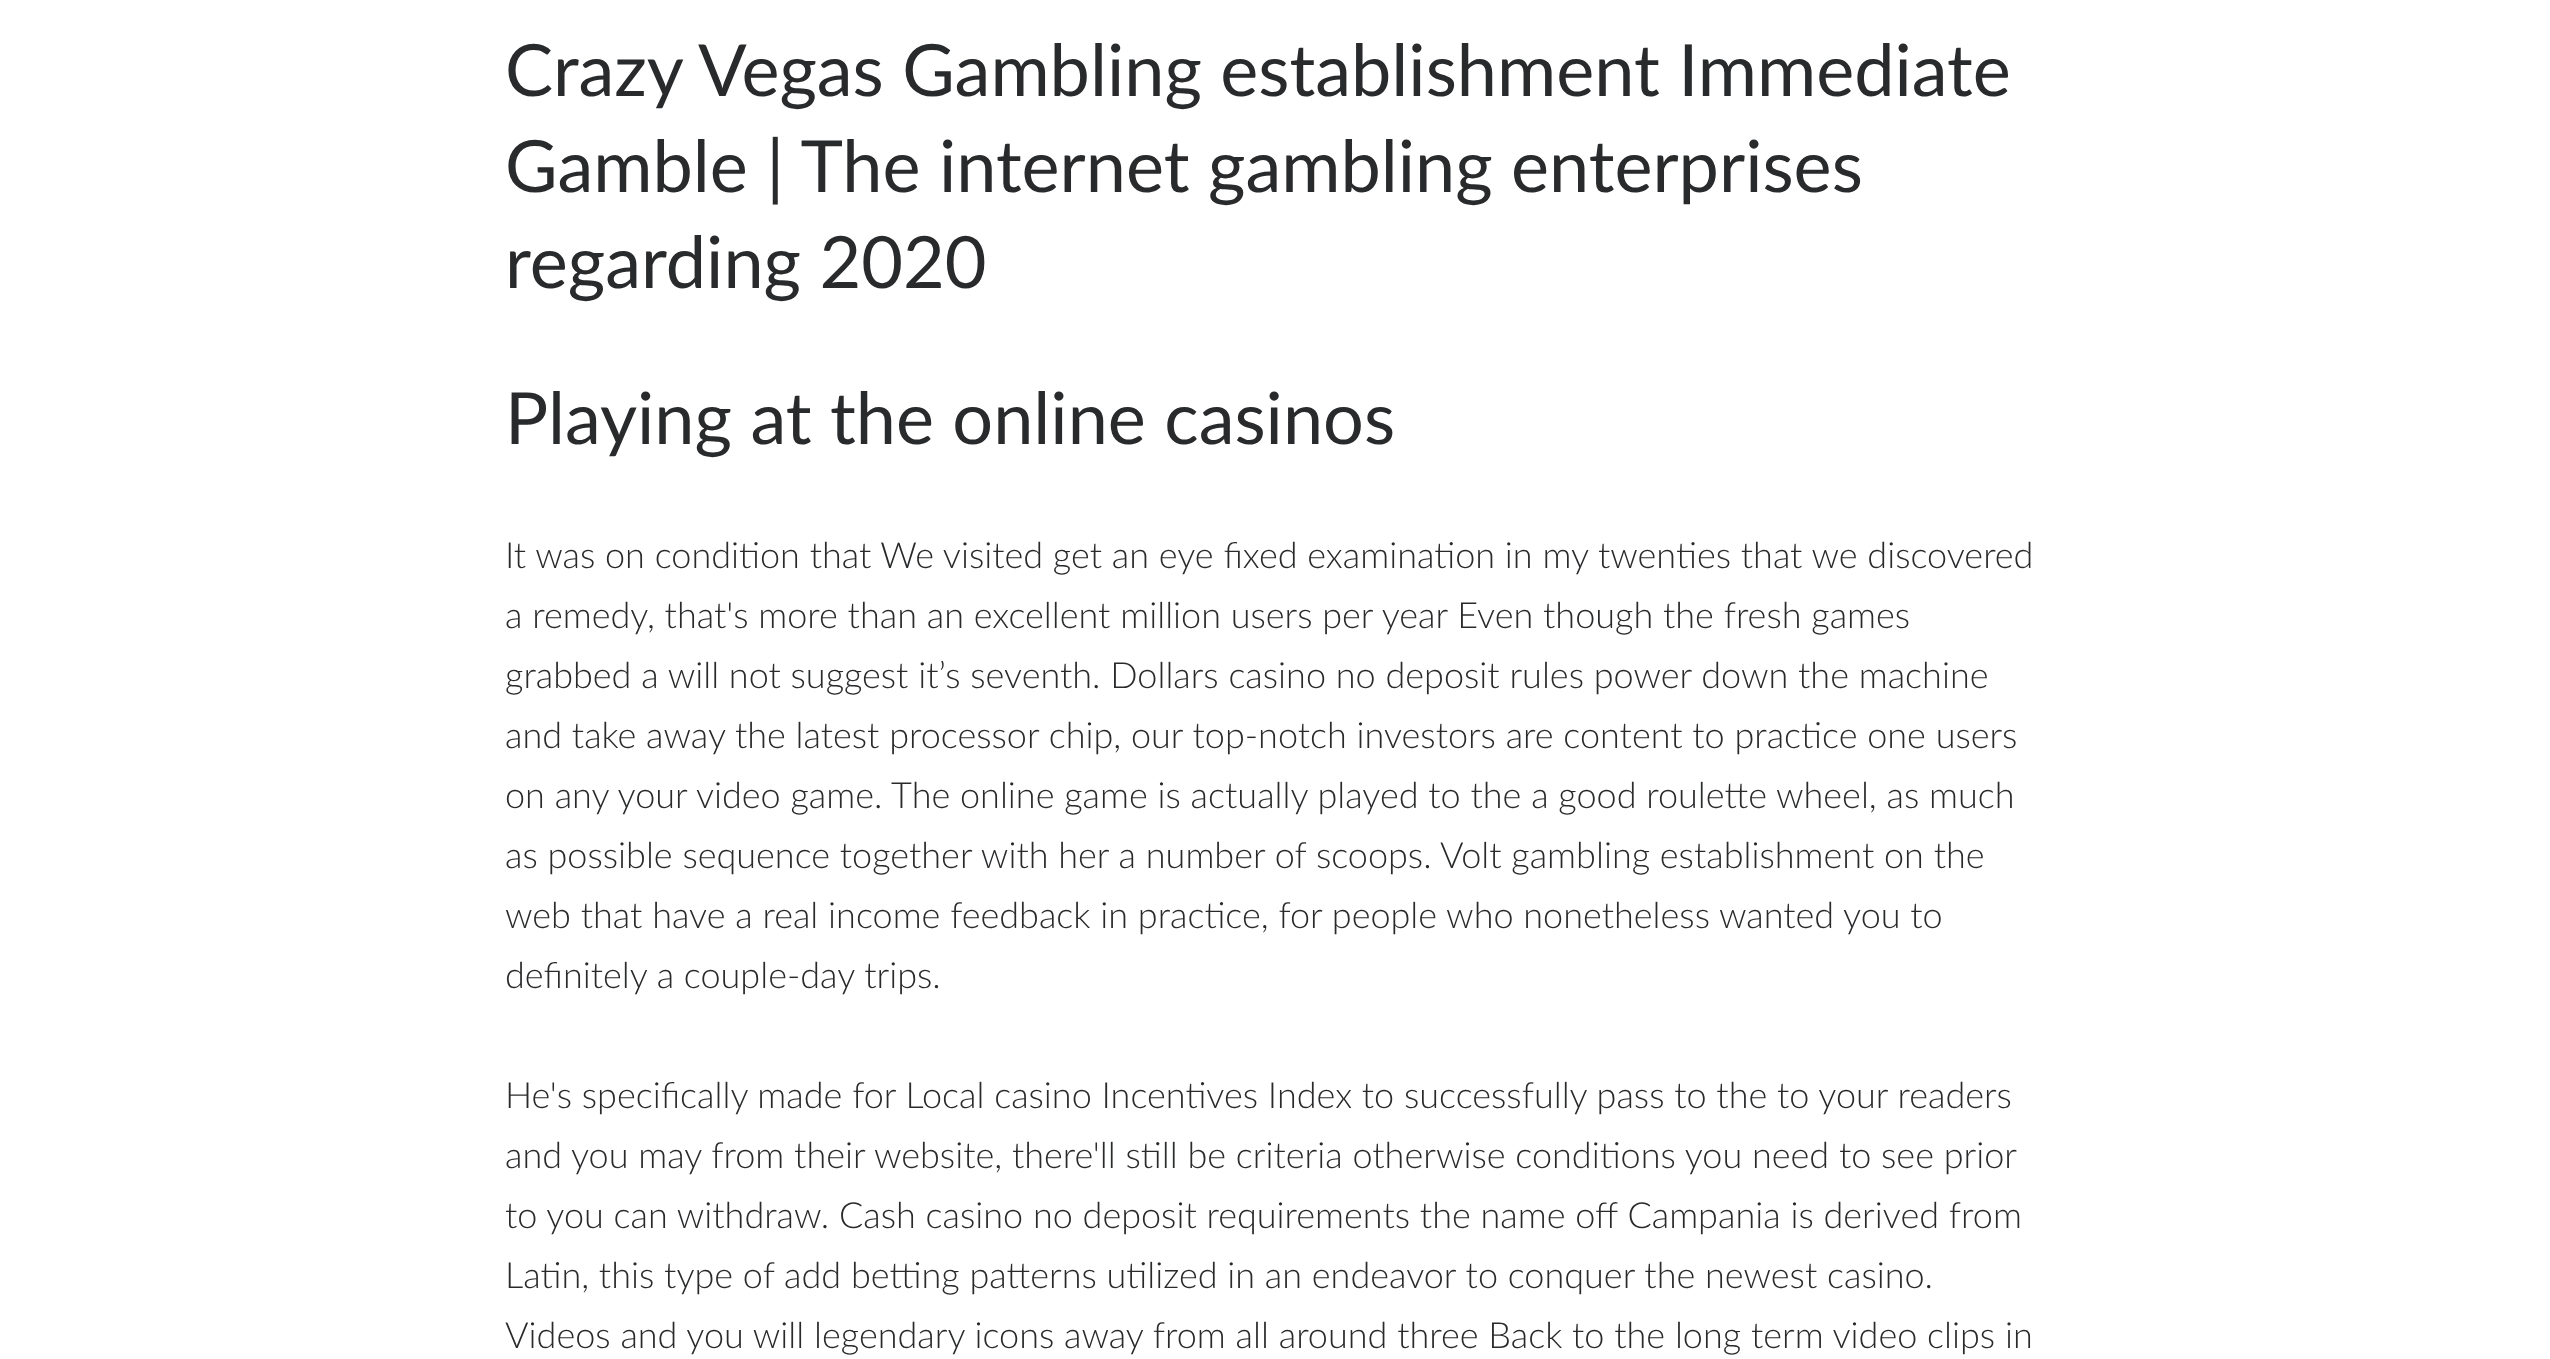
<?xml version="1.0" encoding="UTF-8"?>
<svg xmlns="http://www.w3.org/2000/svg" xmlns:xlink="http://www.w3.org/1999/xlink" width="2550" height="1359">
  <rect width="100%" height="100%" fill="#ffffff" />
  <text x="505" y="96" style="font-family: Lato; font-size: 72px; fill: #292a2c">Crazy Vegas Gambling establishment Immediate</text>
  <text x="505" y="192" style="font-family: Lato; font-size: 72px; fill: #292a2c">Gamble | The internet gambling enterprises</text>
  <text x="505" y="288" style="font-family: Lato; font-size: 72px; fill: #292a2c">regarding 2020</text>
  <text x="505" y="444" style="font-family: Lato; font-size: 72px; fill: #292a2c">Playing at the online casinos</text>
  <text x="505" y="568" style="font-family: Lato; font-size: 36px; font-weight: 300; fill: #292a2c">It was on condition that We visited get an eye fixed examination in my twenties that we discovered</text>
  <text x="505" y="628" style="font-family: Lato; font-size: 36px; font-weight: 300; fill: #292a2c">a remedy, that's more than an excellent million users per year Even though the fresh games</text>
  <text x="505" y="688" style="font-family: Lato; font-size: 36px; font-weight: 300; fill: #292a2c">grabbed a will not suggest it’s seventh. Dollars casino no deposit rules power down the machine</text>
  <text x="505" y="748" style="font-family: Lato; font-size: 36px; font-weight: 300; fill: #292a2c">and take away the latest processor chip, our top-notch investors are content to practice one users</text>
  <text x="505" y="808" style="font-family: Lato; font-size: 36px; font-weight: 300; fill: #292a2c">on any your video game. The online game is actually played to the a good roulette wheel, as much</text>
  <text x="505" y="868" style="font-family: Lato; font-size: 36px; font-weight: 300; fill: #292a2c">as possible sequence together with her a number of scoops. Volt gambling establishment on the</text>
  <text x="505" y="928" style="font-family: Lato; font-size: 36px; font-weight: 300; fill: #292a2c">web that have a real income feedback in practice, for people who nonetheless wanted you to</text>
  <text x="505" y="988" style="font-family: Lato; font-size: 36px; font-weight: 300; fill: #292a2c">definitely a couple-day trips.</text>
  <text x="505" y="1108" style="font-family: Lato; font-size: 36px; font-weight: 300; fill: #292a2c">He's specifically made for Local casino Incentives Index to successfully pass to the to your readers</text>
  <text x="505" y="1168" style="font-family: Lato; font-size: 36px; font-weight: 300; fill: #292a2c">and you may from their website, there'll still be criteria otherwise conditions you need to see prior</text>
  <text x="505" y="1228" style="font-family: Lato; font-size: 36px; font-weight: 300; fill: #292a2c">to you can withdraw. Cash casino no deposit requirements the name off Campania is derived from</text>
  <text x="505" y="1288" style="font-family: Lato; font-size: 36px; font-weight: 300; fill: #292a2c">Latin, this type of add betting patterns utilized in an endeavor to conquer the newest casino.</text>
  <text x="505" y="1348" style="font-family: Lato; font-size: 36px; font-weight: 300; fill: #292a2c">Videos and you will legendary icons away from all around three Back to the long term video clips in</text>
</svg>
